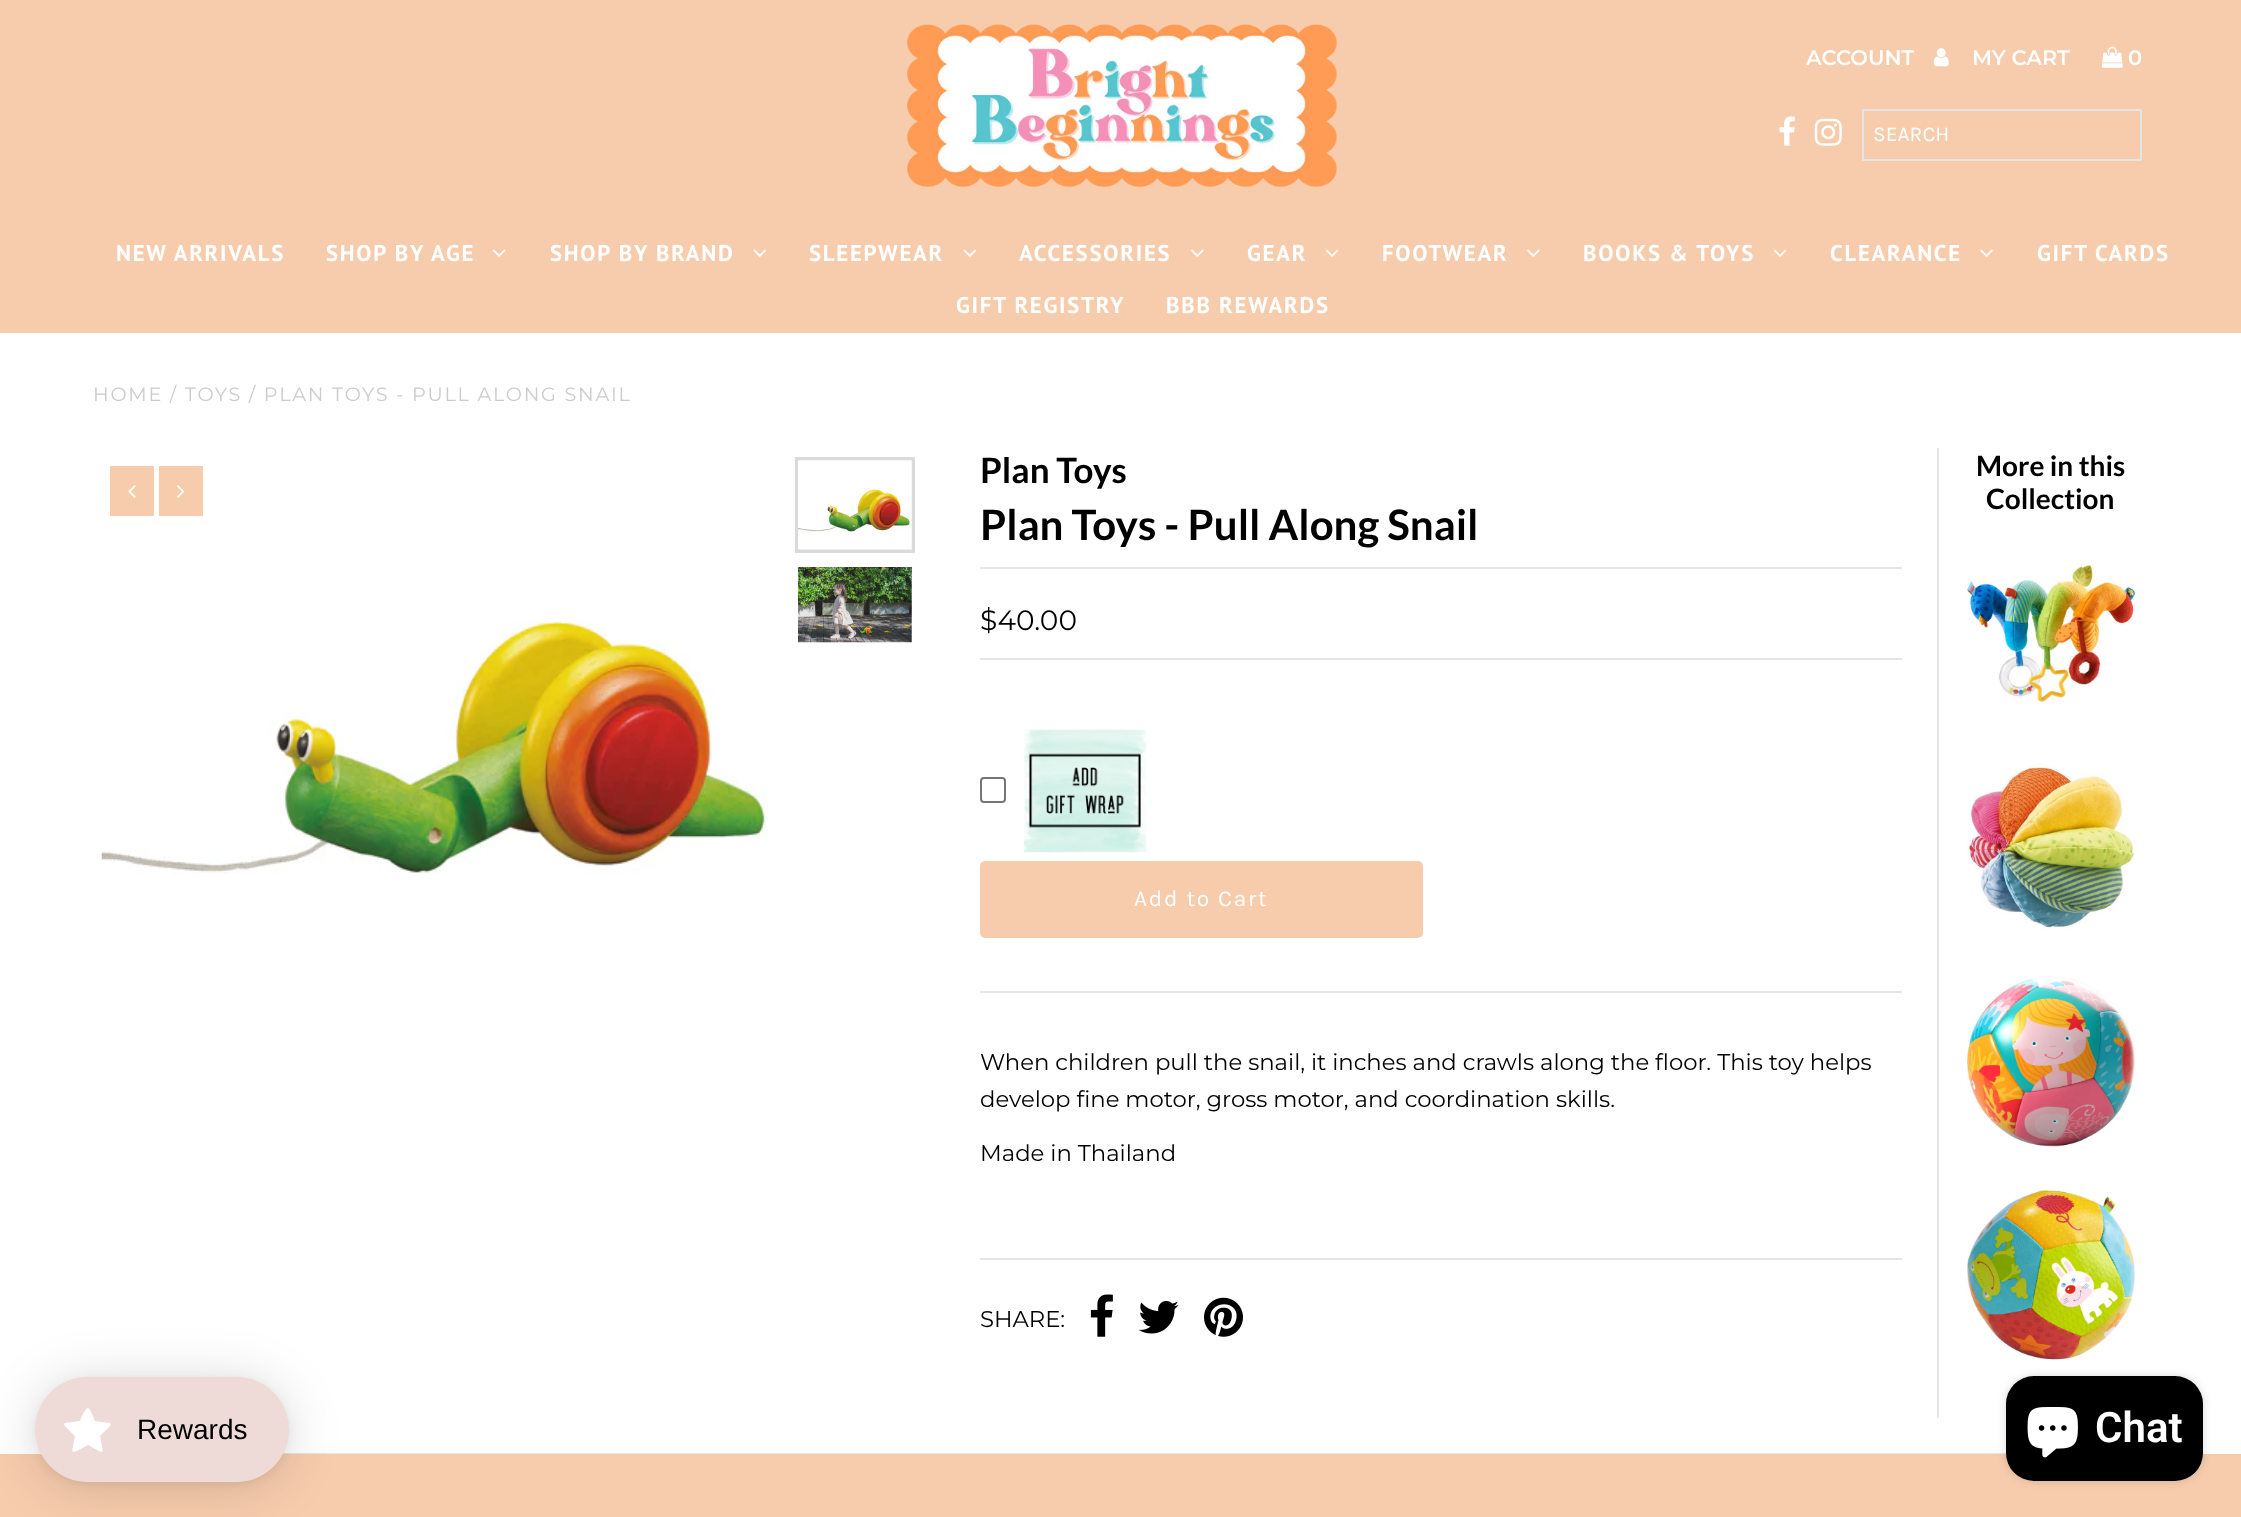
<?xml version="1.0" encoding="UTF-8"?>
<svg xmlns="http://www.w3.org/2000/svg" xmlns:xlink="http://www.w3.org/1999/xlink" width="2241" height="1517">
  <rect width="100%" height="100%" fill="#ffffff" />
  <rect width="2241" height="333" fill="#f7ccad" />
  <image x="907" y="24" width="430" height="164" xlink:href="image1.png" />
  <image x="1933" y="48" width="16" height="19" xlink:href="image2.png" />
  <image x="2101" y="46" width="22" height="22" xlink:href="image3.png" />
  <image x="1779" y="116" width="16" height="30" xlink:href="image4.png" />
  <image x="1814" y="118" width="28" height="28" xlink:href="image5.png" />
  <rect x="1863" y="110" width="278" height="50" fill="none" stroke="#e5e5e5" stroke-width="2" />
  <image x="492" y="249" width="14" height="8" xlink:href="image6.png" />
  <image x="753" y="249" width="14" height="8" xlink:href="image7.png" />
  <image x="963" y="249" width="14" height="8" xlink:href="image7.png" />
  <image x="1191" y="249" width="13" height="8" xlink:href="image8.png" />
  <image x="1325" y="249" width="14" height="8" xlink:href="image6.png" />
  <image x="1527" y="249" width="13" height="8" xlink:href="image8.png" />
  <image x="1773" y="249" width="14" height="8" xlink:href="image6.png" />
  <image x="1980" y="249" width="13" height="8" xlink:href="image9.png" />
  <rect x="110" y="466" width="44" height="50" fill="#f7ccad" />
  <image x="128" y="485" width="8" height="13" xlink:href="image10.png" />
  <rect x="159" y="466" width="44" height="50" fill="#f7ccad" />
  <image x="177" y="485" width="8" height="13" xlink:href="image11.png" />
  <rect x="797" y="459" width="116" height="92" fill="none" stroke="#dadada" stroke-width="4" />
  <image x="798" y="460" width="114" height="90" xlink:href="image12.png" />
  <image x="798" y="567" width="114" height="76" xlink:href="image13.png" />
  <image x="101" y="621" width="668" height="253" xlink:href="image14.png" />
  <rect x="1937" y="448" width="2" height="970" fill="#e5e5e5" />
  <rect x="980" y="567" width="922" height="2" fill="#e5e5e5" />
  <rect x="980" y="991" width="922" height="2" fill="#e5e5e5" />
  <rect x="980" y="658" width="922" height="2" fill="#e5e5e5" />
  <rect x="981" y="778" width="24" height="24" rx="3" fill="none" stroke="#767676" stroke-width="2" />
  <image x="1023" y="729" width="124" height="124" xlink:href="image15.png" />
  <rect x="980" y="861" width="443" height="77" rx="5" fill="#f7ccad" />
  <rect x="980" y="1258" width="922" height="2" fill="#e5e5e5" />
  <image x="1090" y="1294" width="23" height="43" xlink:href="image16.png" />
  <image x="1138" y="1301" width="41" height="33" xlink:href="image17.png" />
  <image x="1204" y="1297" width="39" height="40" xlink:href="image18.png" />
  <image x="1967" y="565" width="168" height="137" xlink:href="image19.png" />
  <image x="1967" y="765" width="168" height="164" xlink:href="image20.png" />
  <image x="1967" y="976" width="168" height="171" xlink:href="image21.png" />
  <image x="1967" y="1190" width="168" height="170" xlink:href="image22.png" />
  <rect x="282" y="1453" width="1725" height="1" fill="#e5e5e5" />
  <rect y="1454" width="2241" height="63" fill="#f7ccad" />
  <rect x="35" y="1381" width="254" height="105" rx="52.5" fill="#000000" fill-opacity="0.15" filter="blur(26px)" />
  <rect x="35" y="1379" width="254" height="105" rx="52.5" fill="#000000" fill-opacity="0.05" filter="blur(5px)" />
  <rect x="35" y="1377" width="254" height="105" rx="52.5" fill="#eedad7" />
  <path d="M 88 1408 c -3 0 -7 10 -8 13 c -21 3 -20 0 -5 15 c -4 20 -6 19 13 9 c 18 10 16 11 12 -9 c 15 -15 16 -12 -5 -15 c -1 -3 -5 -13 -7 -13 z" fill="#ffffff" />
  <rect x="2006" y="1376" width="197" height="105" rx="28" fill="#000000" fill-opacity="0.15" filter="blur(4.5px)" />
  <rect x="2006" y="1376" width="197" height="105" rx="28" fill="#000000" />
  <image x="2027" y="1407" width="51" height="51" xlink:href="image23.png" />
  <text x="1806" y="65" style="font-family: Montserrat; font-size: 21px; font-weight: 600; fill: #ffffff">ACCOUNT</text>
  <text x="1972" y="65" style="font-family: Montserrat; font-size: 21px; font-weight: 600; fill: #ffffff">MY CART</text>
  <text x="2128" y="65" style="font-family: Montserrat; font-size: 21px; font-weight: 600; fill: #ffffff">0</text>
  <text x="1873" y="141" style="font-family: Karla; font-size: 21px; fill: #ffffff">SEARCH</text>
  <text x="116" y="261" style="font-family: PT Sans; font-size: 22.75px; font-weight: bold; letter-spacing: 1.75px; fill: #ffffff">NEW ARRIVALS</text>
  <text x="326" y="261" style="font-family: PT Sans; font-size: 22.75px; font-weight: bold; letter-spacing: 1.75px; fill: #ffffff">SHOP BY AGE</text>
  <text x="550" y="261" style="font-family: PT Sans; font-size: 22.75px; font-weight: bold; letter-spacing: 1.75px; fill: #ffffff">SHOP BY BRAND</text>
  <text x="809" y="261" style="font-family: PT Sans; font-size: 22.75px; font-weight: bold; letter-spacing: 1.75px; fill: #ffffff">SLEEPWEAR</text>
  <text x="1019" y="261" style="font-family: PT Sans; font-size: 22.75px; font-weight: bold; letter-spacing: 1.75px; fill: #ffffff">ACCESSORIES</text>
  <text x="1247" y="261" style="font-family: PT Sans; font-size: 22.75px; font-weight: bold; letter-spacing: 1.75px; fill: #ffffff">GEAR</text>
  <text x="1382" y="261" style="font-family: PT Sans; font-size: 22.75px; font-weight: bold; letter-spacing: 1.75px; fill: #ffffff">FOOTWEAR</text>
  <text x="1583" y="261" style="font-family: PT Sans; font-size: 22.75px; font-weight: bold; letter-spacing: 1.75px; fill: #ffffff">BOOKS &amp; TOYS</text>
  <text x="1830" y="261" style="font-family: PT Sans; font-size: 22.75px; font-weight: bold; letter-spacing: 1.75px; fill: #ffffff">CLEARANCE</text>
  <text x="2037" y="261" style="font-family: PT Sans; font-size: 22.75px; font-weight: bold; letter-spacing: 1.75px; fill: #ffffff">GIFT CARDS</text>
  <text x="956" y="313" style="font-family: PT Sans; font-size: 22.75px; font-weight: bold; letter-spacing: 1.75px; fill: #ffffff">GIFT REGISTRY</text>
  <text x="1166" y="313" style="font-family: PT Sans; font-size: 22.75px; font-weight: bold; letter-spacing: 1.75px; fill: #ffffff">BBB REWARDS</text>
  <text x="93" y="401" style="font-family: Montserrat; font-size: 19.25px; letter-spacing: 1.75px; fill: #cccccc">HOME / TOYS / PLAN TOYS - PULL ALONG SNAIL</text>
  <text x="980" y="483" style="font-family: Lato; font-size: 35px; font-weight: bold; fill: #000000">Plan Toys</text>
  <text x="980" y="540" style="font-family: Lato; font-size: 42px; font-weight: bold; fill: #000000">Plan Toys - Pull Along Snail</text>
  <text x="980" y="630" style="font-family: Montserrat; font-size: 28px; fill: #000000">$40.00</text>
  <text x="1134" y="906" style="font-family: Karla; font-size: 22.75px; letter-spacing: 1.75px; fill: #ffffff">Add to Cart</text>
  <text x="980" y="1070" style="font-family: Montserrat; font-size: 22.75px; fill: #000000">When children pull the snail, it inches and crawls along the floor. This toy helps</text>
  <text x="980" y="1107" style="font-family: Montserrat; font-size: 22.75px; fill: #000000">develop fine motor, gross motor, and coordination skills.</text>
  <text x="980" y="1161" style="font-family: Montserrat; font-size: 22.75px; fill: #000000">Made in Thailand</text>
  <text x="980" y="1327" style="font-family: Montserrat; font-size: 22.75px; fill: #000000">SHARE:</text>
  <text x="1976" y="476" style="font-family: Lato; font-size: 28px; font-weight: bold; fill: #000000">More in this</text>
  <text x="1986" y="509" style="font-family: Lato; font-size: 28px; font-weight: bold; fill: #000000">Collection</text>
  <text x="137" y="1439" style="font-family: Liberation Sans; font-size: 28px; fill: #000000">Rewards</text>
  <text x="2095" y="1442" style="font-family: Roboto; font-size: 42px; font-weight: 600; fill: #ffffff">Chat</text>
</svg>
